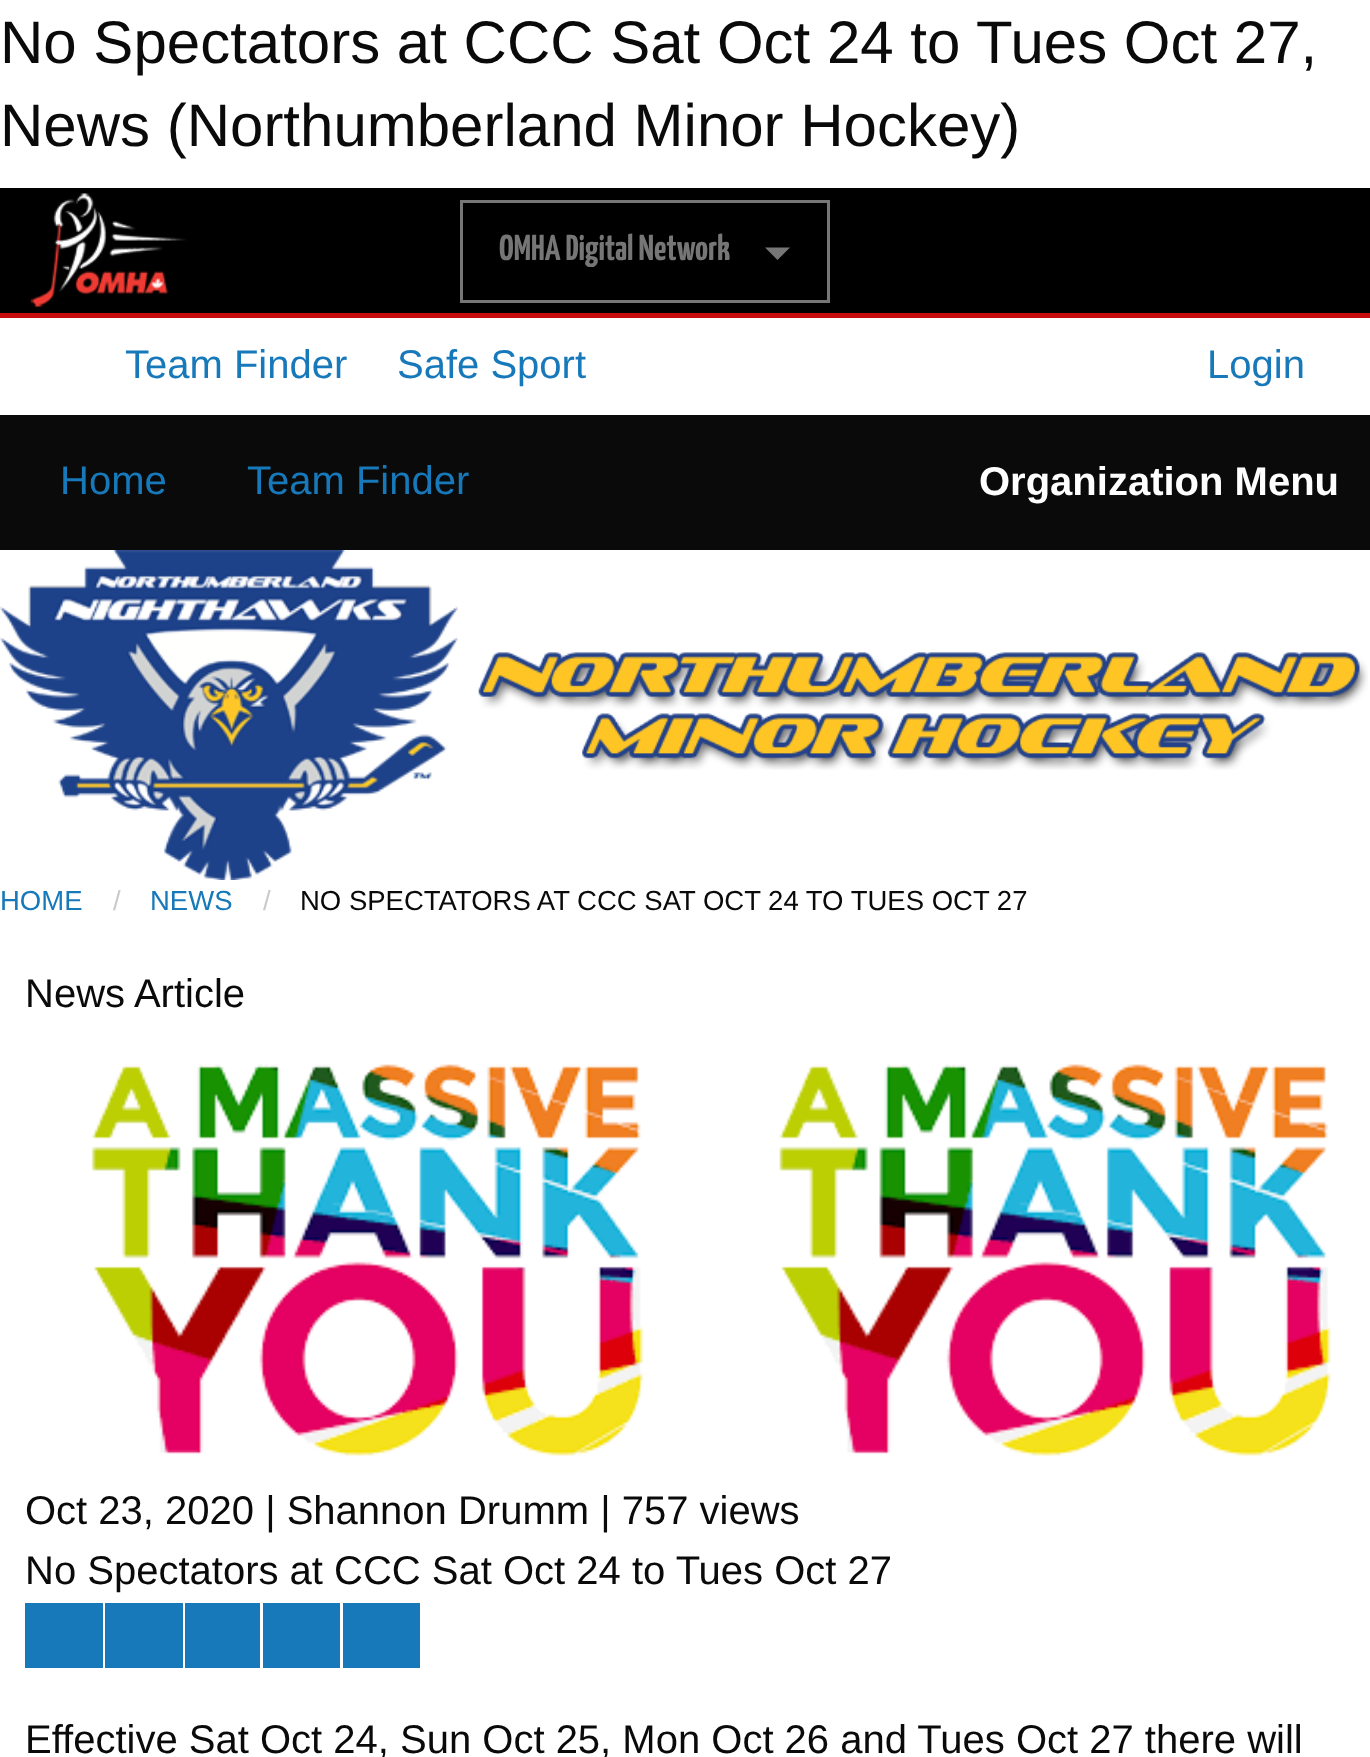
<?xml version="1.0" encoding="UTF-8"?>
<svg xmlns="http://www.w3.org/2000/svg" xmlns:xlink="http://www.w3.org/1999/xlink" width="1370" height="1757">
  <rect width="100%" height="100%" fill="#ffffff" />
  <rect y="188" width="1370" height="125" fill="#000000" />
  <rect y="313" width="1370" height="5" fill="#c60c0c" />
  <image x="30" y="193" width="157" height="114" xlink:href="image1.png" />
  <rect x="461.5" y="201.5" width="367" height="100" fill="none" stroke="#767676" stroke-width="3" />
  <path d="M 765 247.5 h 25 l -12.5 12.5 z" fill="#767676" />
  <rect y="415" width="1370" height="135" fill="#0a0a0a" />
  <image x="0" y="550" width="458" height="330" xlink:href="image2.png" />
  <image x="478" y="652" width="890" height="118" xlink:href="image3.png" />
  <image x="91" y="1064" width="1240" height="392" xlink:href="image4.png" />
  <image x="91" y="1064" width="552" height="391" xlink:href="image5.png" />
  <rect x="25" y="1603" width="78" height="65" fill="#1779ba" />
  <rect x="105" y="1603" width="78" height="65" fill="#1779ba" />
  <rect x="185" y="1603" width="75" height="65" fill="#1779ba" />
  <rect x="263" y="1603" width="77" height="65" fill="#1779ba" />
  <rect x="343" y="1603" width="77" height="65" fill="#1779ba" />
  <text x="0" y="63" style="font-family: Liberation Sans; font-size: 60px; fill: #0a0a0a">No Spectators at CCC Sat Oct 24 to Tues Oct 27,</text>
  <text x="0" y="146" style="font-family: Liberation Sans; font-size: 60px; fill: #0a0a0a">News (Northumberland Minor Hockey)</text>
  <text x="499" y="260" style="font-family: Yanone Kaffeesatz; font-size: 36px; font-weight: 200; fill: #767676">OMHA Digital Network</text>
  <text x="125" y="378" style="font-family: Liberation Sans; font-size: 40px; fill: #1779ba">Team Finder</text>
  <text x="397" y="378" style="font-family: Liberation Sans; font-size: 40px; fill: #1779ba">Safe Sport</text>
  <text x="1207" y="378" style="font-family: Liberation Sans; font-size: 40px; fill: #1779ba">Login</text>
  <text x="60" y="494" style="font-family: Liberation Sans; font-size: 40px; fill: #1779ba">Home</text>
  <text x="247" y="494" style="font-family: Liberation Sans; font-size: 40px; fill: #1779ba">Team Finder</text>
  <text x="979" y="495" style="font-family: Liberation Sans; font-size: 40px; font-weight: bold; fill: #fefefe">Organization Menu</text>
  <text x="0" y="910" style="font-family: Liberation Sans; font-size: 27.5px; fill: #1779ba">HOME</text>
  <text x="113" y="910" style="font-family: Liberation Sans; font-size: 27.5px; fill: #cacaca">/</text>
  <text x="150" y="910" style="font-family: Liberation Sans; font-size: 27.5px; fill: #1779ba">NEWS</text>
  <text x="263" y="910" style="font-family: Liberation Sans; font-size: 27.5px; fill: #cacaca">/</text>
  <text x="300" y="910" style="font-family: Liberation Sans; font-size: 27.5px; fill: #0a0a0a">NO SPECTATORS AT CCC SAT OCT 24 TO TUES OCT 27</text>
  <text x="25" y="1007" style="font-family: Liberation Sans; font-size: 40px; fill: #0a0a0a">News Article</text>
  <text x="25" y="1524" style="font-family: Liberation Sans; font-size: 40px; fill: #0a0a0a">Oct 23, 2020 | Shannon Drumm | 757 views</text>
  <text x="25" y="1584" style="font-family: Liberation Sans; font-size: 40px; fill: #0a0a0a">No Spectators at CCC Sat Oct 24 to Tues Oct 27</text>
  <text x="25" y="1753" style="font-family: Liberation Sans; font-size: 40px; fill: #0a0a0a">Effective Sat Oct 24, Sun Oct 25, Mon Oct 26 and Tues Oct 27 there will</text>
</svg>
